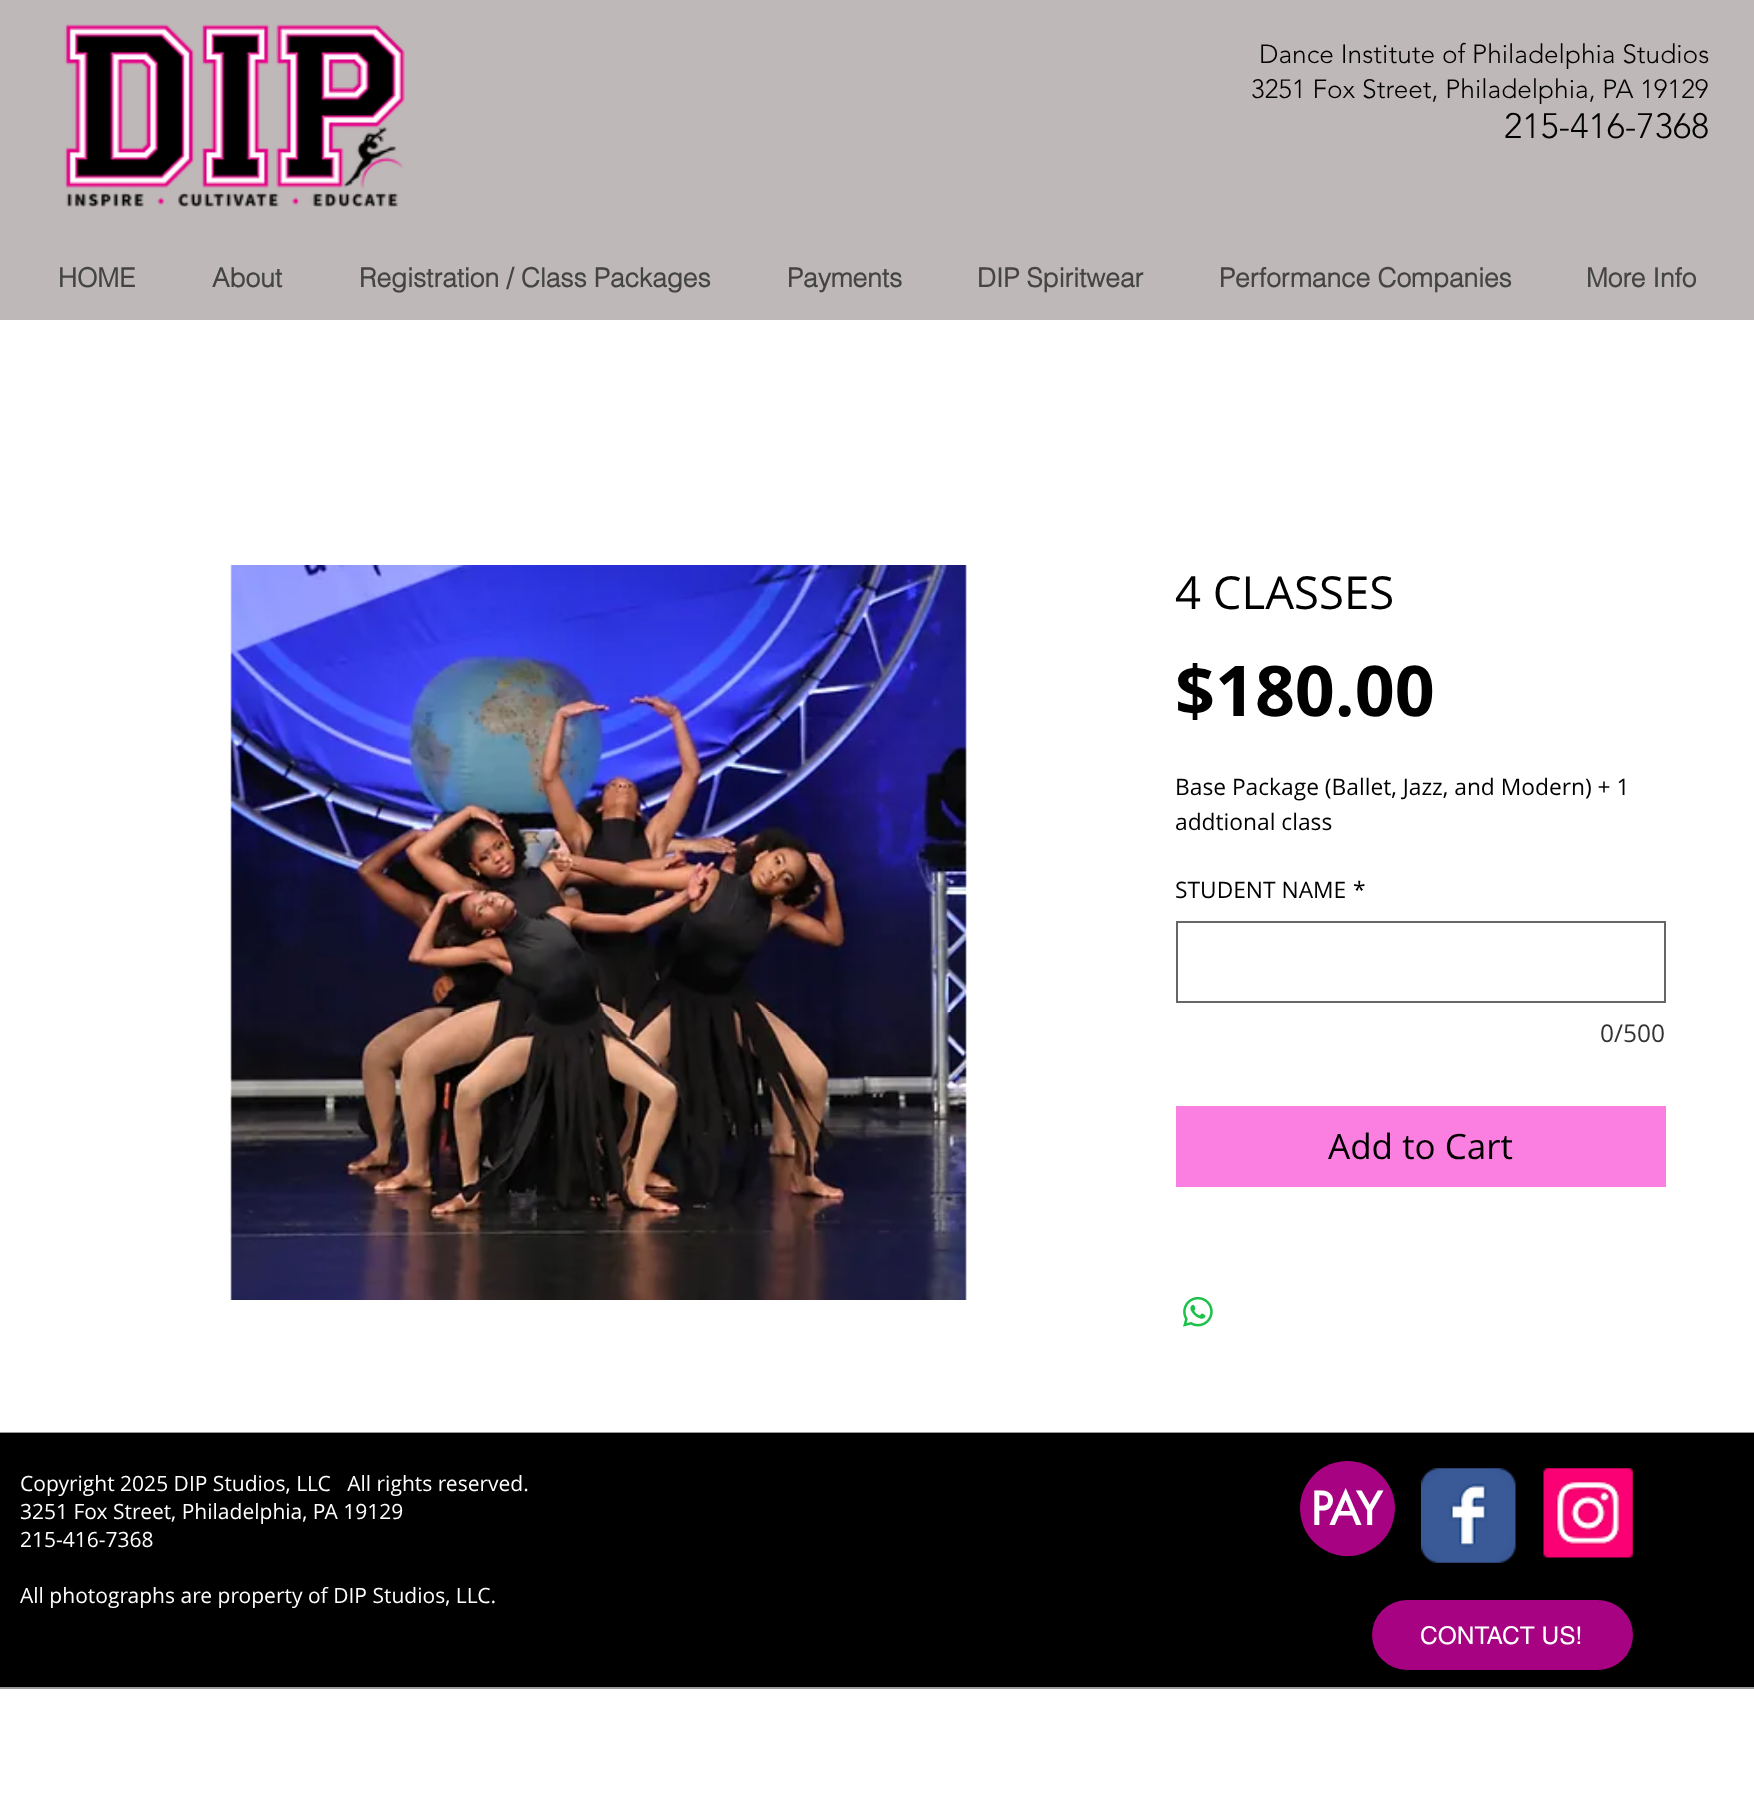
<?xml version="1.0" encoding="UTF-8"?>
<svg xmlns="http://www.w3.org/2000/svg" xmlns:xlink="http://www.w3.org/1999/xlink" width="1754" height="1820">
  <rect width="100%" height="100%" fill="#ffffff" />
  <rect width="1754" height="320" fill="#bfb8b8" />
  <image x="64" y="24" width="341" height="183" xlink:href="image1.png" />
  <image x="230" y="565" width="737" height="735" xlink:href="image2.png" />
  <rect x="1177" y="922" width="488" height="80" fill="none" stroke="#666666" stroke-width="2" />
  <rect x="1176" y="1106" width="490" height="81" fill="#fb7fe0" />
  <image x="1183" y="1296" width="30" height="31" xlink:href="image3.png" />
  <rect y="1432" width="1754" height="1" fill="#999999" />
  <rect y="1687" width="1754" height="2" fill="#999999" />
  <rect y="1433" width="1754" height="254" fill="#000000" />
  <circle cx="1347.5" cy="1508.5" r="47.5" fill="#a60282" />
  <image x="1421" y="1468" width="95" height="95" xlink:href="image4.png" />
  <image x="1543" y="1468" width="90" height="90" xlink:href="image5.png" />
  <rect x="1372" y="1600" width="261" height="70" rx="35" fill="#a60282" />
  <text x="1259" y="63" style="font-family: 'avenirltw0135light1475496'; font-size: 26.25px; font-weight: 300; fill: #000000">Dance Institute of Philadelphia Studios</text>
  <text x="1251" y="98" style="font-family: 'avenirltw0135light1475496'; font-size: 26.25px; font-weight: 300; fill: #000000">3251 Fox Street, Philadelphia, PA 19129</text>
  <text x="1504" y="138" style="font-family: 'avenirltw0135light1475496'; font-size: 35px; font-weight: 300; fill: #000000">215-416-7368</text>
  <text x="58" y="287" style="font-family: helvetica; font-size: 26.25px; font-weight: bold; fill: #444444">HOME</text>
  <text x="212" y="287" style="font-family: helvetica; font-size: 26.25px; font-weight: bold; fill: #444444">About</text>
  <text x="359" y="287" style="font-family: helvetica; font-size: 26.25px; font-weight: bold; fill: #444444">Registration / Class Packages</text>
  <text x="787" y="287" style="font-family: helvetica; font-size: 26.25px; font-weight: bold; fill: #444444">Payments</text>
  <text x="977" y="287" style="font-family: helvetica; font-size: 26.25px; font-weight: bold; fill: #444444">DIP Spiritwear</text>
  <text x="1219" y="287" style="font-family: helvetica; font-size: 26.25px; font-weight: bold; fill: #444444">Performance Companies</text>
  <text x="1586" y="287" style="font-family: helvetica; font-size: 26.25px; font-weight: bold; fill: #444444">More Info</text>
  <text x="1175" y="609" style="font-family: Open Sans; font-size: 45.5px; fill: #000000">4 CLASSES</text>
  <text x="1175" y="716" style="font-family: Open Sans; font-size: 70px; font-weight: bold; fill: #000000">$180.00</text>
  <text x="1175" y="795" style="font-family: Open Sans; font-size: 22.75px; fill: #000000">Base Package (Ballet, Jazz, and Modern) + 1</text>
  <text x="1175" y="830" style="font-family: Open Sans; font-size: 22.75px; fill: #000000">addtional class</text>
  <text x="1175" y="898" style="font-family: Open Sans; font-size: 22.75px; fill: #000000">STUDENT NAME</text>
  <text x="1353" y="898" style="font-family: Open Sans; font-size: 22.75px; fill: #000000">*</text>
  <text x="1600" y="1042" style="font-family: Open Sans; font-size: 24.5px; fill: #333333">0/500</text>
  <text x="1328" y="1159" style="font-family: Open Sans; font-size: 35px; fill: #000000">Add to Cart</text>
  <text x="20" y="1491" style="font-family: Open Sans; font-size: 21px; fill: #ffffff" xml:space="preserve">Copyright 2025 DIP Studios, LLC   All rights reserved.</text>
  <text x="20" y="1519" style="font-family: Open Sans; font-size: 21px; fill: #ffffff">3251 Fox Street, Philadelphia, PA 19129</text>
  <text x="20" y="1547" style="font-family: Open Sans; font-size: 21px; fill: #ffffff">215-416-7368</text>
  <text x="20" y="1603" style="font-family: Open Sans; font-size: 21px; fill: #ffffff">All photographs are property of DIP Studios, LLC.</text>
  <text x="1311" y="1525" style="font-family: futura; font-size: 44px; font-weight: bold; fill: #ffffff">PAY</text>
  <text x="1420" y="1644" style="font-family: helvetica; font-size: 24.5px; fill: #ffffff">CONTACT US!</text>
</svg>
